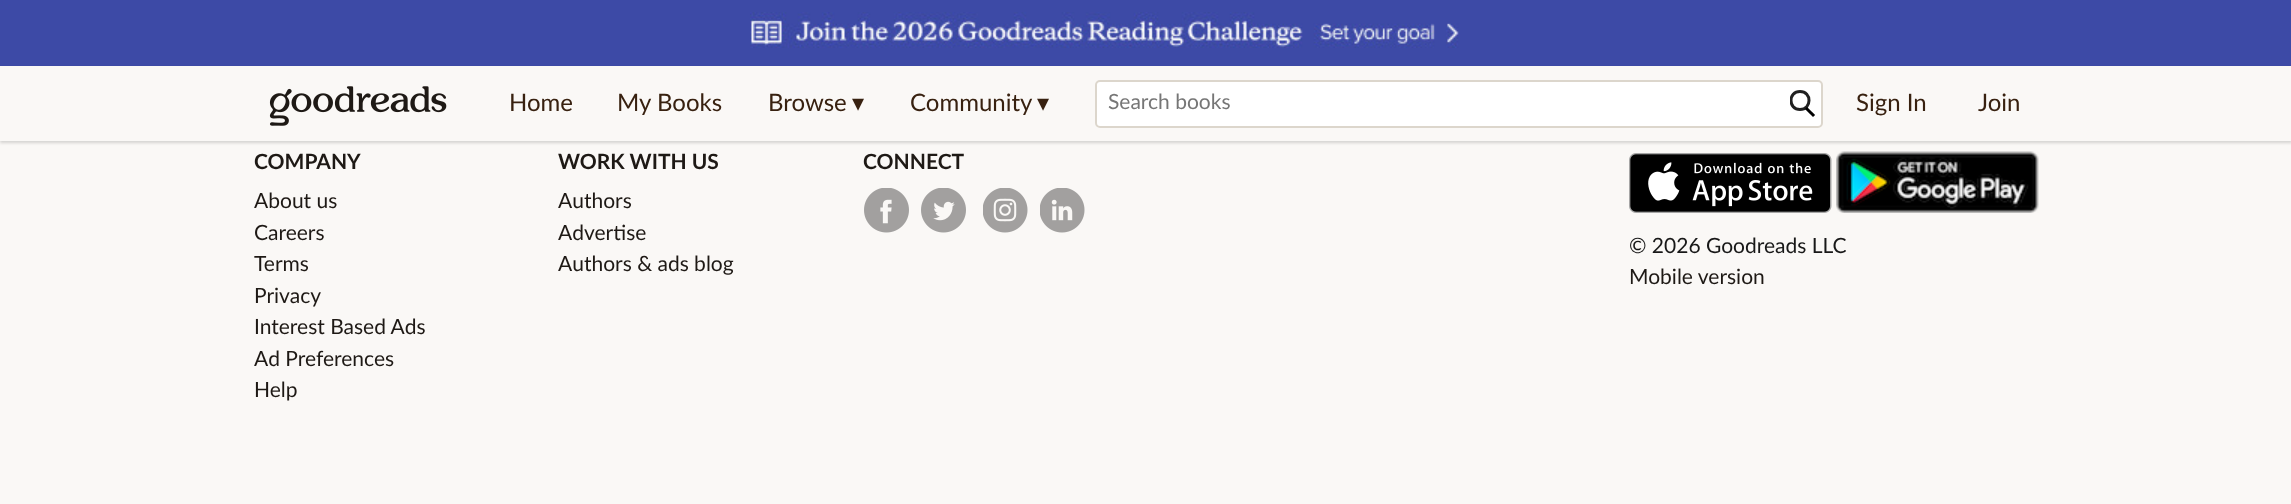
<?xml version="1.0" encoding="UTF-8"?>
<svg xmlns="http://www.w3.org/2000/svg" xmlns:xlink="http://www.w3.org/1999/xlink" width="2291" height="504">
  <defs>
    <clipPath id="clip1"><rect x="1790" y="90" width="27" height="29" /></clipPath>
  </defs>
  <rect width="100%" height="100%" fill="#faf8f6" />
  <rect width="2291" height="66" fill="#3d4aa6" />
  <image x="750" y="12" width="709" height="36" xlink:href="image1.png" />
  <rect y="68" width="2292" height="75" fill="#000000" fill-opacity="0.15" filter="blur(1.5px)" />
  <rect y="66" width="2291" height="75" fill="#faf8f6" />
  <image x="269" y="86" width="178" height="40" xlink:href="image2.png" />
  <rect x="1096" y="81" width="726" height="46" rx="4" fill="#ffffff" stroke="#dcd6cc" stroke-width="2" />
  <g clip-path="url(#clip1)">
    <path d="M 1800 109.5 c 12 0 12 -18 0 -18 c -12 0 -12 18 0 18 z" fill="none" stroke="#202020" stroke-width="3" />
  </g>
  <path d="M 1807 109 l 6 6" fill="none" stroke="#000000" stroke-width="3" stroke-linecap="square" />
  <image x="864" y="188" width="45" height="45" xlink:href="image3.png" />
  <image x="921" y="188" width="45" height="45" xlink:href="image4.png" />
  <image x="983" y="188" width="45" height="45" xlink:href="image5.png" />
  <image x="1040" y="188" width="45" height="45" xlink:href="image6.png" />
  <image x="1629" y="153" width="203" height="60" xlink:href="image7.png" />
  <image x="1836" y="151" width="203" height="62" xlink:href="image8.png" />
  <text x="509" y="111" style="font-family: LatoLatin; font-size: 24px; fill: #382110">Home</text>
  <text x="617" y="111" style="font-family: LatoLatin; font-size: 24px; fill: #382110">My Books</text>
  <text x="768" y="111" style="font-family: LatoLatin; font-size: 24px; fill: #382110">Browse</text>
  <text x="852" y="111" style="font-family: DejaVu Sans; font-size: 24px; fill: #382110">▾</text>
  <text x="910" y="111" style="font-family: LatoLatin; font-size: 24px; fill: #382110">Community</text>
  <text x="1037" y="111" style="font-family: DejaVu Sans; font-size: 24px; fill: #382110">▾</text>
  <text x="1108" y="109" style="font-family: LatoLatin; font-size: 21px; fill: #767676">Search books</text>
  <text x="1856" y="111" style="font-family: LatoLatin; font-size: 24px; fill: #382110">Sign In</text>
  <text x="1978" y="111" style="font-family: LatoLatin; font-size: 24px; fill: #382110">Join</text>
  <text x="254" y="169" style="font-family: LatoLatin; font-size: 21px; font-weight: bold; fill: #1e1915">COMPANY</text>
  <text x="254" y="208" style="font-family: LatoLatin; font-size: 21px; fill: #1e1915">About us</text>
  <text x="254" y="240" style="font-family: LatoLatin; font-size: 21px; fill: #1e1915">Careers</text>
  <text x="254" y="271" style="font-family: LatoLatin; font-size: 21px; fill: #1e1915">Terms</text>
  <text x="254" y="303" style="font-family: LatoLatin; font-size: 21px; fill: #1e1915">Privacy</text>
  <text x="254" y="334" style="font-family: LatoLatin; font-size: 21px; fill: #1e1915">Interest Based Ads</text>
  <text x="254" y="366" style="font-family: LatoLatin; font-size: 21px; fill: #1e1915">Ad Preferences</text>
  <text x="254" y="397" style="font-family: LatoLatin; font-size: 21px; fill: #1e1915">Help</text>
  <text x="558" y="169" style="font-family: LatoLatin; font-size: 21px; font-weight: bold; fill: #1e1915">WORK WITH US</text>
  <text x="558" y="208" style="font-family: LatoLatin; font-size: 21px; fill: #1e1915">Authors</text>
  <text x="558" y="240" style="font-family: LatoLatin; font-size: 21px; fill: #1e1915">Advertise</text>
  <text x="558" y="271" style="font-family: LatoLatin; font-size: 21px; fill: #1e1915">Authors &amp; ads blog</text>
  <text x="863" y="169" style="font-family: LatoLatin; font-size: 21px; font-weight: bold; fill: #1e1915">CONNECT</text>
  <text x="1629" y="253" style="font-family: LatoLatin; font-size: 21px; fill: #181818">© 2026 Goodreads LLC</text>
  <text x="1629" y="284" style="font-family: LatoLatin; font-size: 21px; fill: #1e1915">Mobile version</text>
</svg>
